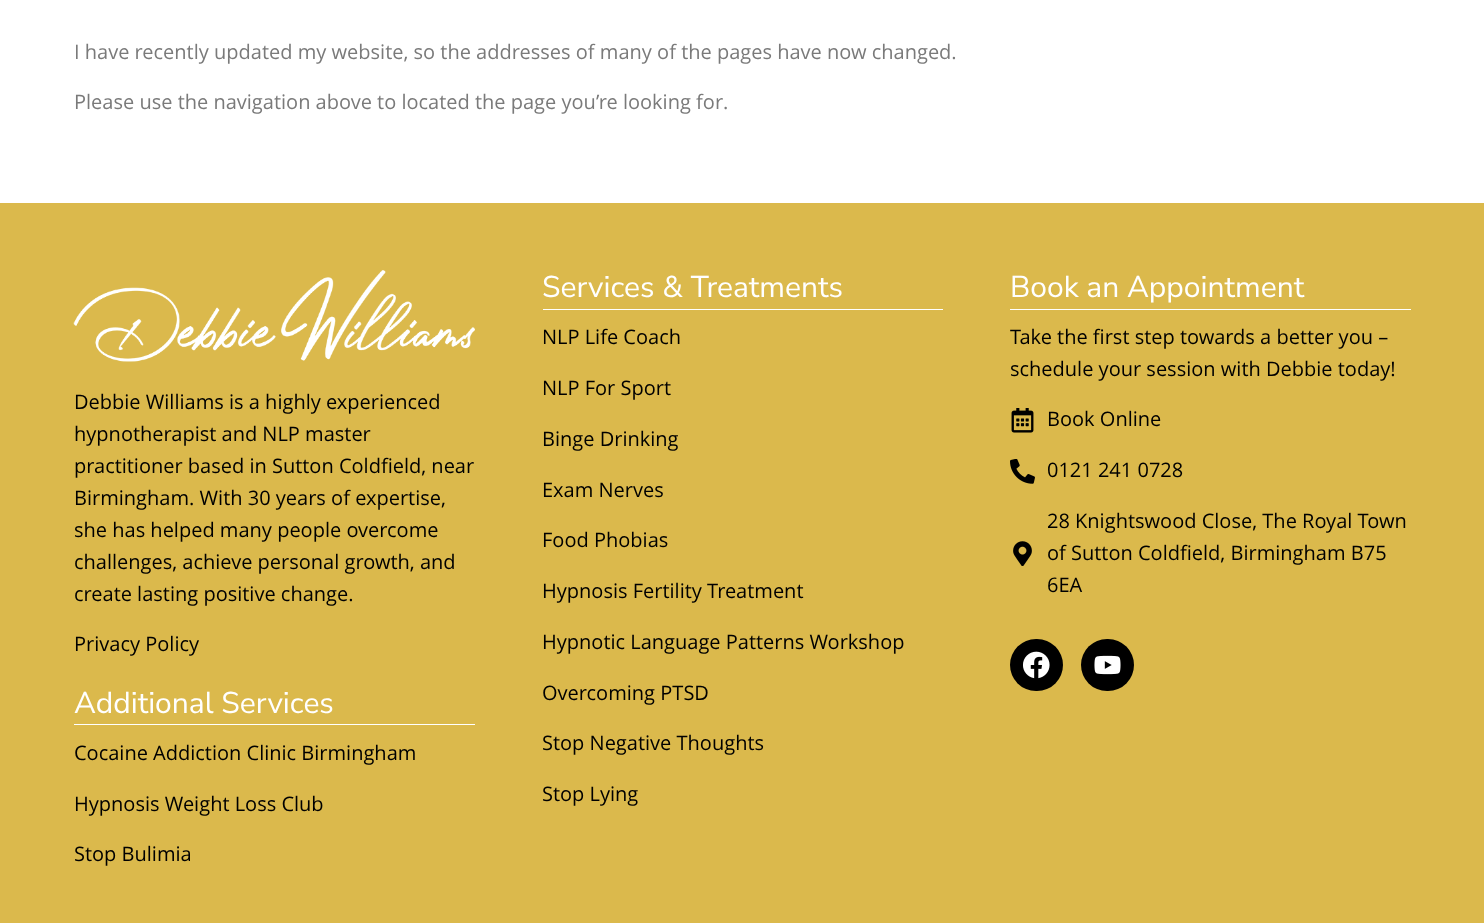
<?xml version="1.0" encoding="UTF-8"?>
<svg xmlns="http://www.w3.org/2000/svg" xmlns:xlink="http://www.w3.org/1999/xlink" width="1484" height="923">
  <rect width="100%" height="100%" fill="#ffffff" />
  <rect y="203" width="1484" height="720" fill="#dbb94c" />
  <image x="73" y="270" width="402" height="92" xlink:href="image1.png" />
  <rect x="74" y="724" width="401" height="1" fill="#ffffff" />
  <rect x="543" y="309" width="400" height="1" fill="#ffffff" />
  <rect x="1010" y="309" width="401" height="1" fill="#ffffff" />
  <image x="1011" y="408" width="23" height="25" xlink:href="image2.png" />
  <image x="1010" y="459" width="25" height="25" xlink:href="image3.png" />
  <image x="1013" y="541" width="19" height="25" xlink:href="image4.png" />
  <rect x="1010" y="639" width="53" height="52" rx="26" fill="#000000" />
  <image x="1023" y="651" width="27" height="28" xlink:href="image5.png" />
  <rect x="1081" y="639" width="53" height="52" rx="26" fill="#000000" />
  <image x="1094" y="655" width="27" height="20" xlink:href="image6.png" />
  <text x="74" y="59" style="font-family: Open Sans; font-size: 20px; fill: #7a7a7a">I have recently updated my website, so the addresses of many of the pages have now changed.</text>
  <text x="74" y="109" style="font-family: Open Sans; font-size: 20px; fill: #7a7a7a">Please use the navigation above to located the page you’re looking for.</text>
  <text x="74" y="409" style="font-family: Open Sans; font-size: 20px; fill: #000000">Debbie Williams is a highly experienced</text>
  <text x="74" y="441" style="font-family: Open Sans; font-size: 20px; fill: #000000">hypnotherapist and NLP master</text>
  <text x="74" y="473" style="font-family: Open Sans; font-size: 20px; fill: #000000">practitioner based in Sutton Coldfield, near</text>
  <text x="74" y="505" style="font-family: Open Sans; font-size: 20px; fill: #000000">Birmingham. With 30 years of expertise,</text>
  <text x="74" y="537" style="font-family: Open Sans; font-size: 20px; fill: #000000">she has helped many people overcome</text>
  <text x="74" y="569" style="font-family: Open Sans; font-size: 20px; fill: #000000">challenges, achieve personal growth, and</text>
  <text x="74" y="601" style="font-family: Open Sans; font-size: 20px; fill: #000000">create lasting positive change.</text>
  <text x="74" y="651" style="font-family: Open Sans; font-size: 20px; fill: #000000">Privacy Policy</text>
  <text x="74" y="713" style="font-family: Nunito Sans; font-size: 30px; fill: #ffffff">Additional Services</text>
  <text x="74" y="760" style="font-family: Open Sans; font-size: 20px; fill: #000000">Cocaine Addiction Clinic Birmingham</text>
  <text x="74" y="811" style="font-family: Open Sans; font-size: 20px; fill: #000000">Hypnosis Weight Loss Club</text>
  <text x="74" y="861" style="font-family: Open Sans; font-size: 20px; fill: #000000">Stop Bulimia</text>
  <text x="542" y="297" style="font-family: Nunito Sans; font-size: 30px; fill: #ffffff">Services &amp; Treatments</text>
  <text x="542" y="344" style="font-family: Open Sans; font-size: 20px; fill: #000000">NLP Life Coach</text>
  <text x="542" y="395" style="font-family: Open Sans; font-size: 20px; fill: #000000">NLP For Sport</text>
  <text x="542" y="446" style="font-family: Open Sans; font-size: 20px; fill: #000000">Binge Drinking</text>
  <text x="542" y="497" style="font-family: Open Sans; font-size: 20px; fill: #000000">Exam Nerves</text>
  <text x="542" y="547" style="font-family: Open Sans; font-size: 20px; fill: #000000">Food Phobias</text>
  <text x="542" y="598" style="font-family: Open Sans; font-size: 20px; fill: #000000">Hypnosis Fertility Treatment</text>
  <text x="542" y="649" style="font-family: Open Sans; font-size: 20px; fill: #000000">Hypnotic Language Patterns Workshop</text>
  <text x="542" y="700" style="font-family: Open Sans; font-size: 20px; fill: #000000">Overcoming PTSD</text>
  <text x="542" y="750" style="font-family: Open Sans; font-size: 20px; fill: #000000">Stop Negative Thoughts</text>
  <text x="542" y="801" style="font-family: Open Sans; font-size: 20px; fill: #000000">Stop Lying</text>
  <text x="1010" y="297" style="font-family: Nunito Sans; font-size: 30px; fill: #ffffff">Book an Appointment</text>
  <text x="1010" y="344" style="font-family: Open Sans; font-size: 20px; fill: #000000">Take the first step towards a better you –</text>
  <text x="1010" y="376" style="font-family: Open Sans; font-size: 20px; fill: #000000">schedule your session with Debbie today!</text>
  <text x="1047" y="426" style="font-family: Open Sans; font-size: 20px; fill: #000000">Book Online</text>
  <text x="1047" y="477" style="font-family: Open Sans; font-size: 20px; fill: #000000">0121 241 0728</text>
  <text x="1047" y="528" style="font-family: Open Sans; font-size: 20px; fill: #000000">28 Knightswood Close, The Royal Town</text>
  <text x="1047" y="560" style="font-family: Open Sans; font-size: 20px; fill: #000000">of Sutton Coldfield, Birmingham B75</text>
  <text x="1047" y="592" style="font-family: Open Sans; font-size: 20px; fill: #000000">6EA</text>
</svg>
